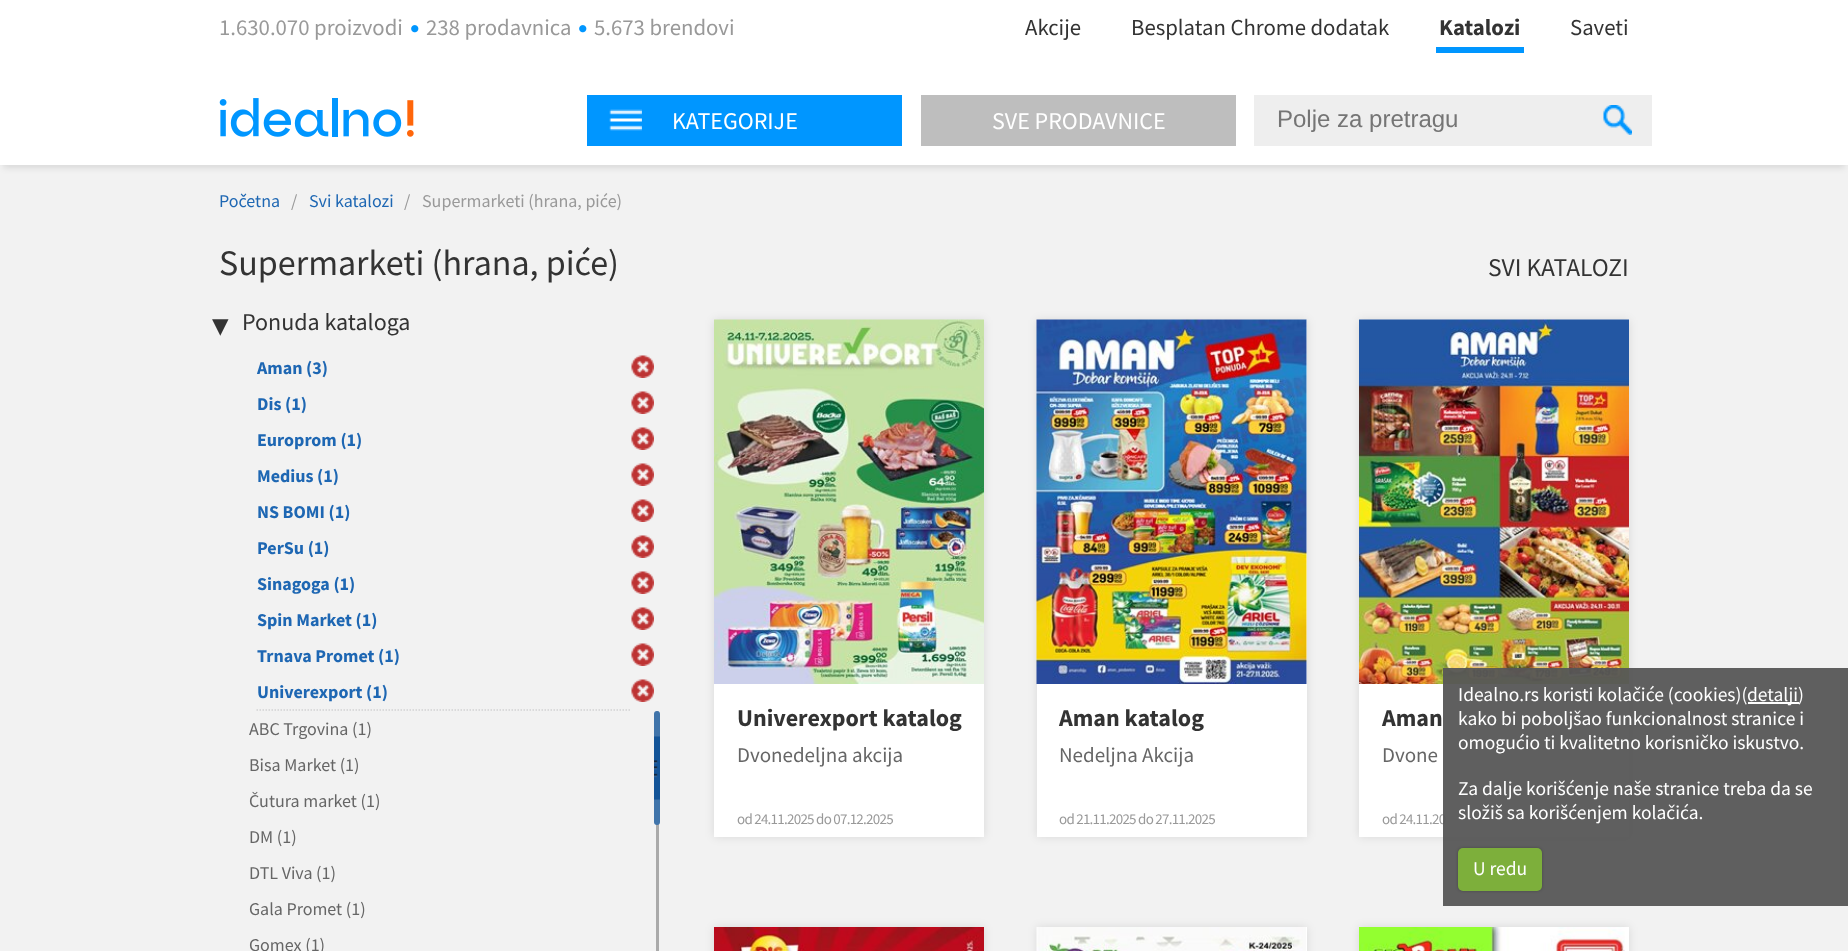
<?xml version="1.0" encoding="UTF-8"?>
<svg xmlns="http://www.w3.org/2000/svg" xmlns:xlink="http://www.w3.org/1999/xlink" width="1848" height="951">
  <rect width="100%" height="100%" fill="#f2f2f2" />
  <rect width="1848" height="75" fill="#ffffff" />
  <image x="411" y="25" width="8" height="8" xlink:href="image1.png" />
  <image x="579" y="25" width="8" height="8" xlink:href="image1.png" />
  <rect x="1436" y="47" width="88" height="6" fill="#0096ff" />
  <rect x="3" y="84" width="1842" height="84" fill="#000000" fill-opacity="0.1" filter="blur(3px)" />
  <rect y="75" width="1848" height="90" fill="#ffffff" />
  <image x="219" y="98" width="195" height="39" xlink:href="image2.png" />
  <rect x="587" y="95" width="315" height="51" fill="#0096ff" />
  <image x="609" y="109" width="33" height="22" xlink:href="image3.png" />
  <rect x="921" y="95" width="315" height="51" fill="#bebebe" />
  <rect x="1254" y="95" width="398" height="51" fill="#eeeeee" />
  <image x="1603" y="105" width="29" height="30" xlink:href="image4.png" />
  <path d="M 256.5 710 h 375" fill="none" stroke="#d2d2d3" stroke-width="1.5" stroke-dasharray="1.5 1.5" />
  <image x="631" y="355" width="23" height="23" xlink:href="image5.png" />
  <image x="631" y="391" width="23" height="23" xlink:href="image5.png" />
  <image x="631" y="427" width="23" height="23" xlink:href="image5.png" />
  <image x="631" y="463" width="23" height="23" xlink:href="image5.png" />
  <image x="631" y="499" width="23" height="23" xlink:href="image5.png" />
  <image x="631" y="535" width="23" height="23" xlink:href="image5.png" />
  <image x="631" y="571" width="23" height="23" xlink:href="image5.png" />
  <image x="631" y="607" width="23" height="23" xlink:href="image5.png" />
  <image x="631" y="643" width="23" height="23" xlink:href="image5.png" />
  <image x="631" y="679" width="23" height="23" xlink:href="image5.png" />
  <rect x="656" y="711" width="3" height="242" rx="1.5" fill="#aaaaaa" />
  <rect x="654" y="711" width="6" height="114" rx="3" fill="#4074aa" />
  <image x="654" y="736" width="6" height="64" xlink:href="image6.png" />
  <rect x="714" y="320" width="270" height="517" fill="#000000" fill-opacity="0.1" filter="blur(5px)" />
  <rect x="714" y="684" width="270" height="153" fill="#ffffff" />
  <image x="714" y="319" width="270" height="365" xlink:href="image7.png" />
  <rect x="1037" y="320" width="270" height="517" fill="#000000" fill-opacity="0.1" filter="blur(5px)" />
  <rect x="1037" y="320" width="270" height="517" fill="#ffffff" />
  <image x="1036" y="319" width="271" height="365" xlink:href="image8.png" />
  <rect x="1359" y="320" width="270" height="517" fill="#000000" fill-opacity="0.1" filter="blur(5px)" />
  <rect x="1359" y="684" width="270" height="153" fill="#ffffff" />
  <image x="1359" y="319" width="270" height="365" xlink:href="image9.png" />
  <rect x="714" y="927" width="270" height="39" fill="#000000" fill-opacity="0.1" filter="blur(5px)" />
  <image x="714" y="927" width="270" height="24" xlink:href="image10.png" />
  <rect x="1037" y="927" width="270" height="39" fill="#000000" fill-opacity="0.1" filter="blur(5px)" />
  <rect x="1306" y="927" width="1" height="24" fill="#ffffff" />
  <image x="1036" y="927" width="270" height="24" xlink:href="image11.png" />
  <rect x="1359" y="927" width="270" height="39" fill="#000000" fill-opacity="0.1" filter="blur(5px)" />
  <rect x="1625" y="927" width="4" height="24" fill="#ffffff" />
  <image x="1359" y="927" width="266" height="24" xlink:href="image12.png" />
  <text x="219" y="35" style="font-family: Source Sans Pro; font-size: 22.75px; fill: #999999">1.630.070 proizvodi</text>
  <text x="426" y="35" style="font-family: Source Sans Pro; font-size: 22.75px; fill: #999999">238 prodavnica</text>
  <text x="594" y="35" style="font-family: Source Sans Pro; font-size: 22.75px; fill: #999999">5.673 brendovi</text>
  <text x="1025" y="35" style="font-family: Source Sans Pro; font-size: 22.75px; fill: #333333">Akcije</text>
  <text x="1131" y="35" style="font-family: Source Sans Pro; font-size: 22.75px; fill: #333333">Besplatan Chrome dodatak</text>
  <text x="1439" y="35" style="font-family: Source Sans Pro; font-size: 22.75px; font-weight: bold; fill: #333333">Katalozi</text>
  <text x="1570" y="35" style="font-family: Source Sans Pro; font-size: 22.75px; fill: #333333">Saveti</text>
  <text x="672" y="129" style="font-family: Source Sans Pro; font-size: 24px; fill: #ffffff">KATEGORIJE</text>
  <text x="992" y="129" style="font-family: Source Sans Pro; font-size: 24px; fill: #ffffff">SVE PRODAVNICE</text>
  <text x="1277" y="127" style="font-family: Liberation Sans; font-size: 24px; fill: #757575">Polje za pretragu</text>
  <text x="219" y="207" style="font-family: Source Sans Pro; font-size: 18px; fill: #1e67b3">Početna</text>
  <text x="291" y="207" style="font-family: Source Sans Pro; font-size: 18px; fill: #999999">/</text>
  <text x="309" y="207" style="font-family: Source Sans Pro; font-size: 18px; fill: #1e67b3">Svi katalozi</text>
  <text x="404" y="207" style="font-family: Source Sans Pro; font-size: 18px; fill: #999999">/</text>
  <text x="422" y="207" style="font-family: Source Sans Pro; font-size: 18px; fill: #999999">Supermarketi (hrana, piće)</text>
  <text x="219" y="275" style="font-family: Source Sans Pro; font-size: 36px; fill: #333333">Supermarketi (hrana, piće)</text>
  <text x="212" y="336" style="font-family: DejaVu Sans; font-size: 33px; fill: #333333">▾</text>
  <text x="242" y="330" style="font-family: Source Sans Pro; font-size: 24px; fill: #333333">Ponuda kataloga</text>
  <text x="257" y="374" style="font-family: Source Sans Pro; font-size: 18px; font-weight: bold; fill: #1e67b3">Aman (3)</text>
  <text x="257" y="410" style="font-family: Source Sans Pro; font-size: 18px; font-weight: bold; fill: #1e67b3">Dis (1)</text>
  <text x="257" y="446" style="font-family: Source Sans Pro; font-size: 18px; font-weight: bold; fill: #1e67b3">Europrom (1)</text>
  <text x="257" y="482" style="font-family: Source Sans Pro; font-size: 18px; font-weight: bold; fill: #1e67b3">Medius (1)</text>
  <text x="257" y="518" style="font-family: Source Sans Pro; font-size: 18px; font-weight: bold; fill: #1e67b3">NS BOMI (1)</text>
  <text x="257" y="554" style="font-family: Source Sans Pro; font-size: 18px; font-weight: bold; fill: #1e67b3">PerSu (1)</text>
  <text x="257" y="590" style="font-family: Source Sans Pro; font-size: 18px; font-weight: bold; fill: #1e67b3">Sinagoga (1)</text>
  <text x="257" y="626" style="font-family: Source Sans Pro; font-size: 18px; font-weight: bold; fill: #1e67b3">Spin Market (1)</text>
  <text x="257" y="662" style="font-family: Source Sans Pro; font-size: 18px; font-weight: bold; fill: #1e67b3">Trnava Promet (1)</text>
  <text x="257" y="698" style="font-family: Source Sans Pro; font-size: 18px; font-weight: bold; fill: #1e67b3">Univerexport (1)</text>
  <text x="249" y="735" style="font-family: Source Sans Pro; font-size: 18px; fill: #666666">ABC Trgovina (1)</text>
  <text x="249" y="771" style="font-family: Source Sans Pro; font-size: 18px; fill: #666666">Bisa Market (1)</text>
  <text x="249" y="807" style="font-family: Source Sans Pro; font-size: 18px; fill: #666666">Čutura market (1)</text>
  <text x="249" y="843" style="font-family: Source Sans Pro; font-size: 18px; fill: #666666">DM (1)</text>
  <text x="249" y="879" style="font-family: Source Sans Pro; font-size: 18px; fill: #666666">DTL Viva (1)</text>
  <text x="249" y="915" style="font-family: Source Sans Pro; font-size: 18px; fill: #666666">Gala Promet (1)</text>
  <text x="249" y="951" style="font-family: Source Sans Pro; font-size: 18px; fill: #666666">Gomex (1)</text>
  <text x="1488" y="276" style="font-family: Source Sans Pro; font-size: 25.5px; fill: #333333">SVI KATALOZI</text>
  <text x="737" y="726" style="font-family: Source Sans Pro; font-size: 24px; font-weight: bold; fill: #333333">Univerexport katalog</text>
  <text x="737" y="762" style="font-family: Source Sans Pro; font-size: 21px; fill: #666666">Dvonedeljna akcija</text>
  <text x="737" y="824" style="font-family: Source Sans Pro; font-size: 15px; letter-spacing: -0.75px; fill: #999999">od 24.11.2025 do 07.12.2025</text>
  <text x="1059" y="726" style="font-family: Source Sans Pro; font-size: 24px; font-weight: bold; fill: #333333">Aman katalog</text>
  <text x="1059" y="762" style="font-family: Source Sans Pro; font-size: 21px; fill: #666666">Nedeljna Akcija</text>
  <text x="1059" y="824" style="font-family: Source Sans Pro; font-size: 15px; letter-spacing: -0.75px; fill: #999999">od 21.11.2025 do 27.11.2025</text>
  <text x="1382" y="726" style="font-family: Source Sans Pro; font-size: 24px; font-weight: bold; fill: #333333">Aman</text>
  <text x="1382" y="762" style="font-family: Source Sans Pro; font-size: 21px; fill: #666666">Dvone</text>
  <text x="1382" y="824" style="font-family: Source Sans Pro; font-size: 15px; letter-spacing: -0.75px; fill: #999999">od 24.11.20</text>
  <rect x="1443" y="668" width="405" height="238" fill="#565656" fill-opacity="0.95" />
  <text x="1458" y="701" style="font-family: Source Sans Pro; font-size: 19.5px; fill: #ffffff">Idealno.rs koristi kolačiće (cookies)(</text>
  <rect x="1748" y="702" width="51" height="2" fill="#ffffff" />
  <text x="1747" y="701" style="font-family: Source Sans Pro; font-size: 19.5px; fill: #ffffff">detalji)</text>
  <text x="1458" y="725" style="font-family: Source Sans Pro; font-size: 19.5px; fill: #ffffff">kako bi poboljšao funkcionalnost stranice i</text>
  <text x="1458" y="749" style="font-family: Source Sans Pro; font-size: 19.5px; fill: #ffffff">omogućio ti kvalitetno korisničko iskustvo.</text>
  <text x="1458" y="795" style="font-family: Source Sans Pro; font-size: 19.5px; fill: #ffffff">Za dalje korišćenje naše stranice treba da se</text>
  <text x="1458" y="819" style="font-family: Source Sans Pro; font-size: 19.5px; fill: #ffffff">složiš sa korišćenjem kolačića.</text>
  <rect x="1458" y="848" width="84" height="43" rx="5" fill="#000000" fill-opacity="0.25" filter="blur(1.5px)" />
  <rect x="1458" y="848" width="84" height="43" rx="5" fill="#7daf3b" />
  <text x="1473" y="875" style="font-family: Source Sans Pro; font-size: 19.5px; fill: #ffffff">U redu</text>
</svg>
